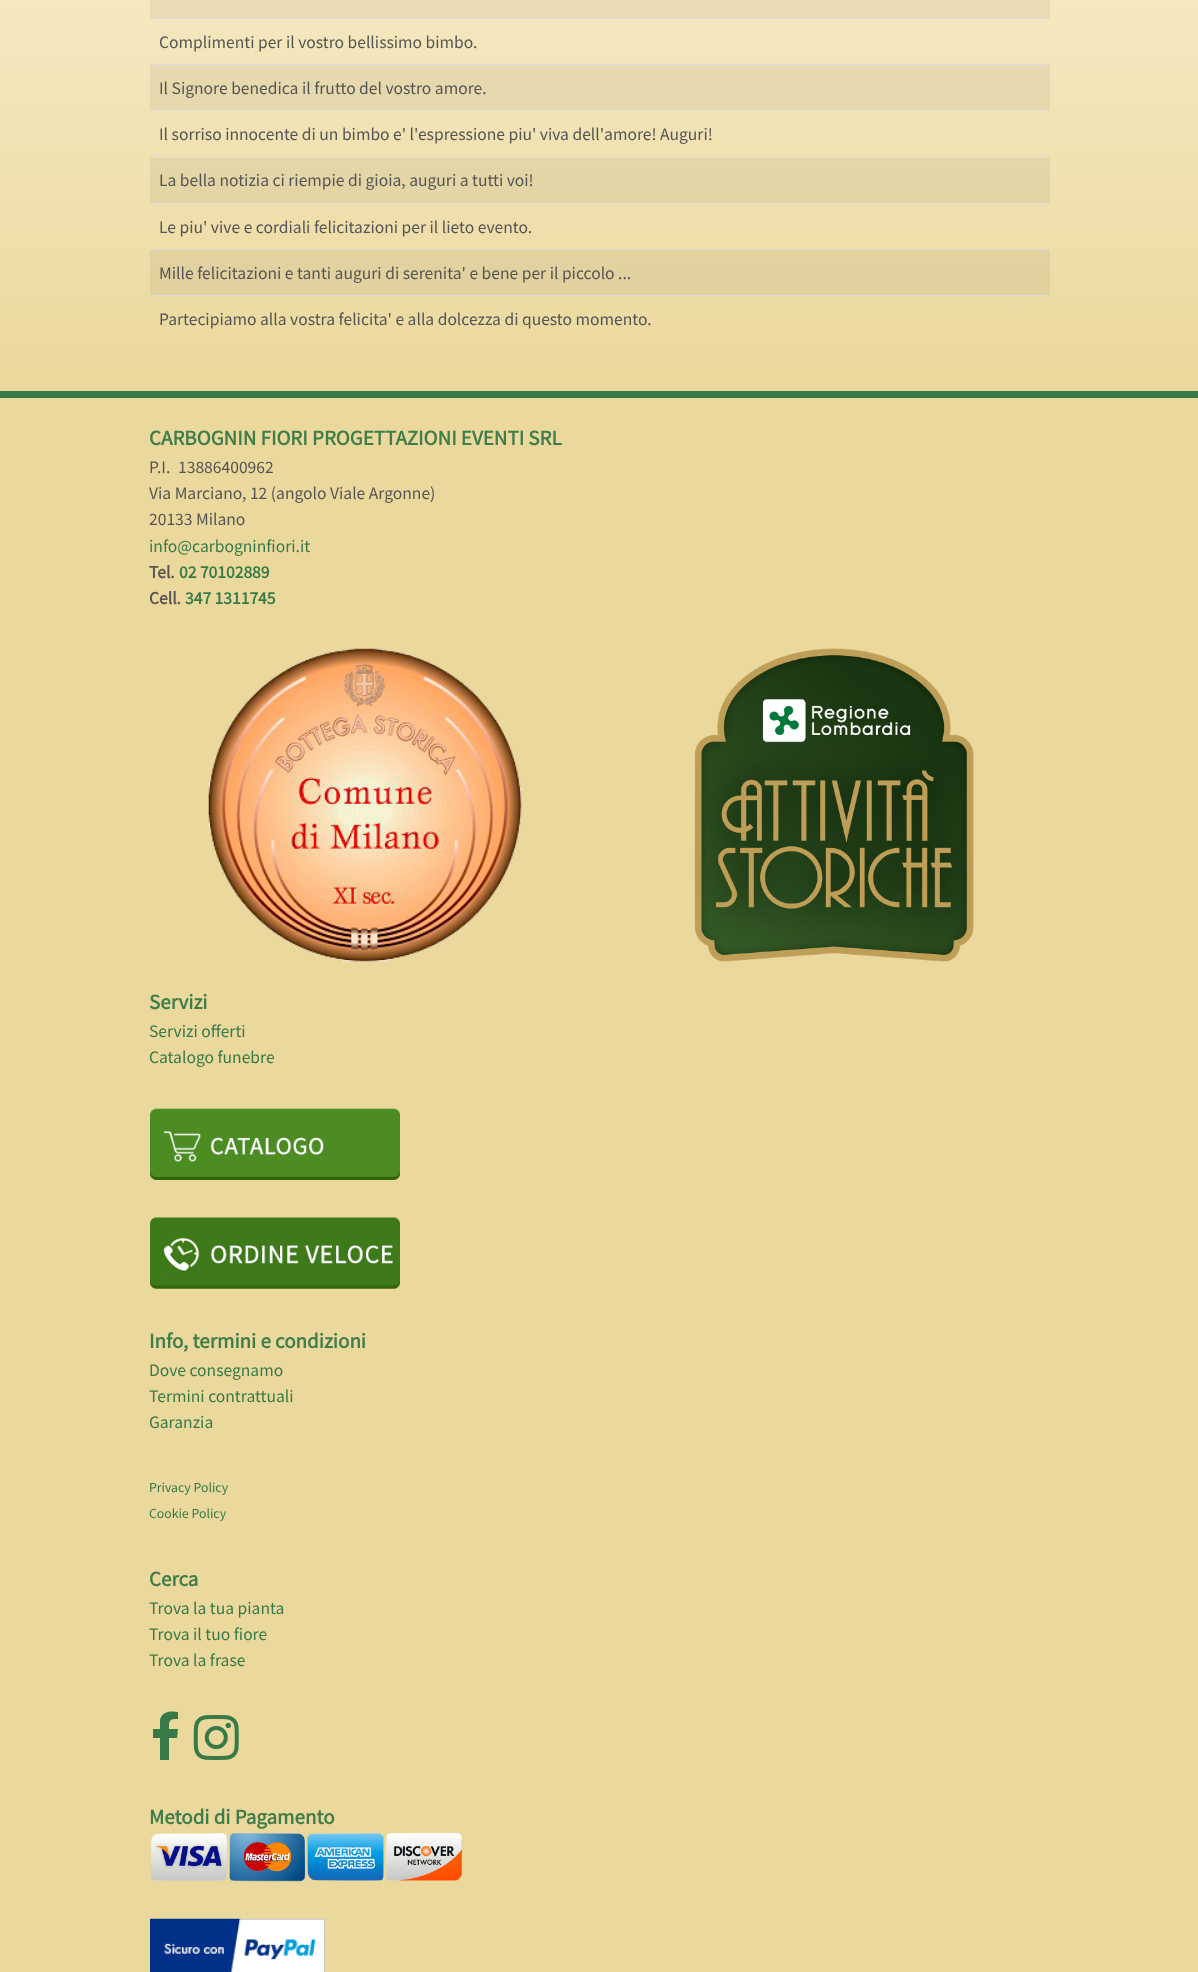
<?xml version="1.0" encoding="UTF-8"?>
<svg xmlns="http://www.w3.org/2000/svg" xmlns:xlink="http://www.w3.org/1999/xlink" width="1198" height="1972">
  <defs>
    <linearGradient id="g1" gradientUnits="userSpaceOnUse" x1="599" y1="-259" x2="599" y2="391"><stop offset="0" stop-color="#fcf3d6" /><stop offset="1" stop-color="#ebd89d" /></linearGradient>
    <linearGradient id="g2" gradientUnits="userSpaceOnUse" x1="599" y1="-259" x2="599" y2="391"><stop offset="0" stop-color="#efe7cb" /><stop offset="1" stop-color="#dfcd95" /></linearGradient>
  </defs>
  <rect width="100%" height="100%" fill="#ebd89d" />
  <rect width="1198" height="362" fill="url(#g1)" />
  <rect x="150" y="250" width="900" height="45" fill="url(#g2)" />
  <rect x="150" y="158" width="900" height="45" fill="url(#g2)" />
  <rect x="150" y="65" width="900" height="45" fill="url(#g2)" />
  <rect x="150" width="900" height="18" fill="#e9dcb5" />
  <rect x="149" y="18" width="901" height="1" fill="#dddddd" />
  <rect x="149" y="64" width="901" height="1" fill="#dddddd" />
  <rect x="149" y="110" width="901" height="1" fill="#dddddd" />
  <rect x="149" y="156" width="901" height="1" fill="#dddddd" />
  <rect x="149" y="203" width="901" height="1" fill="#dddddd" />
  <rect x="149" y="249" width="901" height="1" fill="#dddddd" />
  <rect x="149" y="295" width="901" height="1" fill="#dddddd" />
  <rect y="391" width="1198" height="7" fill="#377a48" />
  <image x="208" y="648" width="314" height="314" xlink:href="image1.png" />
  <image x="694" y="648" width="280" height="314" xlink:href="image2.png" />
  <image x="150" y="1108" width="250" height="72" xlink:href="image3.png" />
  <image x="150" y="1217" width="250" height="72" xlink:href="image4.png" />
  <path d="M 178 1712 v 7 c -9 0 -9 1 -9 10 h 9 l -1 9 h -8 v 22 h -9 v -22 h -7 v -9 h 7 v -9 c 2 -9 11 -9 18 -8 z" fill="#377a48" />
  <image x="193" y="1715" width="46" height="45" xlink:href="image5.png" />
  <image x="150" y="1832" width="313" height="50" xlink:href="image6.png" />
  <image x="150" y="1918" width="175" height="54" xlink:href="image7.png" />
  <text x="159" y="48" style="font-family: Source Sans Pro; font-size: 17.5px; fill: #555555">Complimenti per il vostro bellissimo bimbo.</text>
  <text x="159" y="94" style="font-family: Source Sans Pro; font-size: 17.5px; fill: #555555">Il Signore benedica il frutto del vostro amore.</text>
  <text x="159" y="140" style="font-family: Source Sans Pro; font-size: 17.5px; fill: #555555">Il sorriso innocente di un bimbo e' l'espressione piu' viva dell'amore! Auguri!</text>
  <text x="159" y="186" style="font-family: Source Sans Pro; font-size: 17.5px; fill: #555555">La bella notizia ci riempie di gioia, auguri a tutti voi!</text>
  <text x="159" y="233" style="font-family: Source Sans Pro; font-size: 17.5px; fill: #555555">Le piu' vive e cordiali felicitazioni per il lieto evento.</text>
  <text x="159" y="279" style="font-family: Source Sans Pro; font-size: 17.5px; fill: #555555">Mille felicitazioni e tanti auguri di serenita' e bene per il piccolo ...</text>
  <text x="159" y="325" style="font-family: Source Sans Pro; font-size: 17.5px; fill: #555555">Partecipiamo alla vostra felicita' e alla dolcezza di questo momento.</text>
  <text x="149" y="445" style="font-family: Source Sans Pro; font-size: 21px; font-weight: bold; fill: #3f7d4a">CARBOGNIN FIORI PROGETTAZIONI EVENTI SRL</text>
  <text x="149" y="473" style="font-family: Source Sans Pro; font-size: 17.5px; fill: #555555">P.I.</text>
  <text x="178" y="473" style="font-family: Source Sans Pro; font-size: 17.5px; fill: #555555">13886400962</text>
  <text x="149" y="499" style="font-family: Source Sans Pro; font-size: 17.5px; fill: #555555">Via Marciano, 12 (angolo Viale Argonne)</text>
  <text x="149" y="525" style="font-family: Source Sans Pro; font-size: 17.5px; fill: #555555">20133 Milano</text>
  <text x="149" y="552" style="font-family: Source Sans Pro; font-size: 17.5px; fill: #377a48">info@carbogninfiori.it</text>
  <text x="149" y="578" style="font-family: Source Sans Pro; font-size: 17.5px; font-weight: bold; fill: #555555">Tel.</text>
  <text x="179" y="578" style="font-family: Source Sans Pro; font-size: 17.5px; font-weight: bold; fill: #377a48">02 70102889</text>
  <text x="149" y="604" style="font-family: Source Sans Pro; font-size: 17.5px; font-weight: bold; fill: #555555">Cell.</text>
  <text x="185" y="604" style="font-family: Source Sans Pro; font-size: 17.5px; font-weight: bold; fill: #377a48">347 1311745</text>
  <text x="149" y="1009" style="font-family: Source Sans Pro; font-size: 21px; font-weight: bold; fill: #3f7d4a">Servizi</text>
  <text x="149" y="1037" style="font-family: Source Sans Pro; font-size: 17.5px; fill: #377a48">Servizi offerti</text>
  <text x="149" y="1063" style="font-family: Source Sans Pro; font-size: 17.5px; fill: #377a48">Catalogo funebre</text>
  <text x="149" y="1348" style="font-family: Source Sans Pro; font-size: 21px; font-weight: bold; fill: #3f7d4a">Info, termini e condizioni</text>
  <text x="149" y="1376" style="font-family: Source Sans Pro; font-size: 17.5px; fill: #377a48">Dove consegnamo</text>
  <text x="149" y="1402" style="font-family: Source Sans Pro; font-size: 17.5px; fill: #377a48">Termini contrattuali</text>
  <text x="149" y="1428" style="font-family: Source Sans Pro; font-size: 17.5px; fill: #377a48">Garanzia</text>
  <text x="149" y="1492" style="font-family: Source Sans Pro; font-size: 13.75px; fill: #377a48">Privacy Policy</text>
  <text x="149" y="1518" style="font-family: Source Sans Pro; font-size: 13.75px; fill: #377a48">Cookie Policy</text>
  <text x="149" y="1586" style="font-family: Source Sans Pro; font-size: 21px; font-weight: bold; fill: #3f7d4a">Cerca</text>
  <text x="149" y="1614" style="font-family: Source Sans Pro; font-size: 17.5px; fill: #377a48">Trova la tua pianta</text>
  <text x="149" y="1640" style="font-family: Source Sans Pro; font-size: 17.5px; fill: #377a48">Trova il tuo fiore</text>
  <text x="149" y="1666" style="font-family: Source Sans Pro; font-size: 17.5px; fill: #377a48">Trova la frase</text>
  <text x="149" y="1824" style="font-family: Source Sans Pro; font-size: 21px; font-weight: bold; fill: #3f7d4a">Metodi di Pagamento</text>
</svg>
